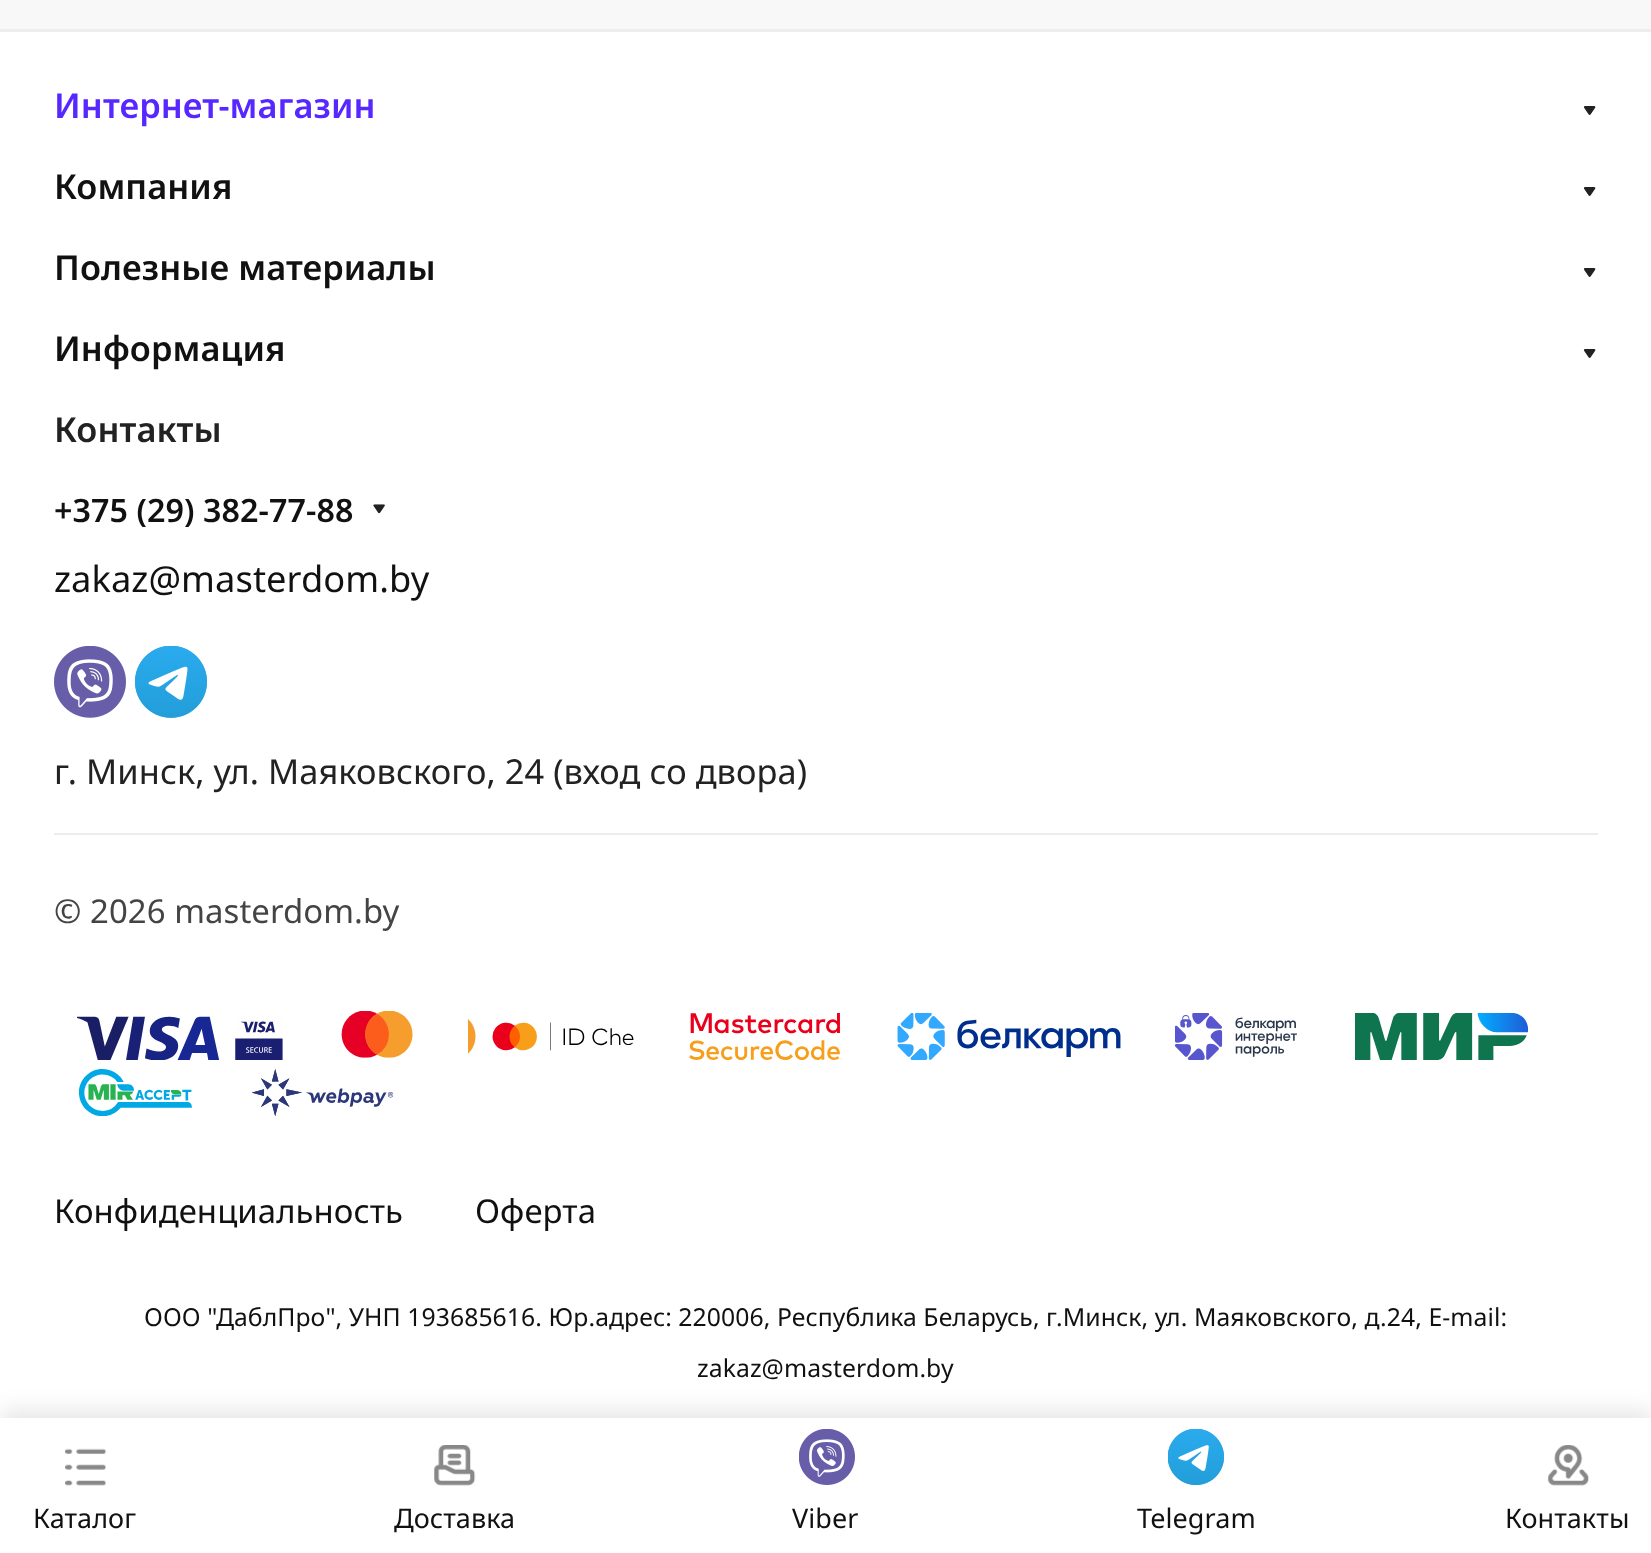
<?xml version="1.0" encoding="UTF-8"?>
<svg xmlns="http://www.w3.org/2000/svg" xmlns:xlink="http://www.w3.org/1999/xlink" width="1651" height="1553">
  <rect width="100%" height="100%" fill="#ffffff" />
  <path d="M 0 29 v 3 h 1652 v -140 v 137 z" fill="#ededed" />
  <rect width="1651" height="29" fill="#f8f8f8" />
  <image x="1583" y="106" width="13" height="9" xlink:href="image1.png" />
  <image x="1583" y="187" width="13" height="9" xlink:href="image1.png" />
  <image x="1583" y="268" width="13" height="9" xlink:href="image1.png" />
  <image x="1583" y="349" width="13" height="9" xlink:href="image1.png" />
  <image x="373" y="504" width="12" height="10" xlink:href="image2.png" />
  <image x="54" y="646" width="72" height="72" xlink:href="image3.png" />
  <image x="135" y="646" width="72" height="72" xlink:href="image4.png" />
  <rect x="54" y="833" width="1544" height="2" fill="#ededed" />
  <image x="77" y="1016" width="206" height="44" xlink:href="image5.png" />
  <image x="341" y="1011" width="72" height="47" xlink:href="image6.png" />
  <image x="468" y="1019" width="166" height="35" xlink:href="image7.png" />
  <image x="689" y="1013" width="153" height="47" xlink:href="image8.png" />
  <image x="897" y="1013" width="224" height="47" xlink:href="image9.png" />
  <image x="1175" y="1013" width="122" height="47" xlink:href="image10.png" />
  <image x="1355" y="1013" width="173" height="47" xlink:href="image11.png" />
  <image x="78" y="1069" width="114" height="47" xlink:href="image12.png" />
  <image x="252" y="1069" width="142" height="47" xlink:href="image13.png" />
  <rect y="1411" width="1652" height="137" fill="#000000" fill-opacity="0.1" filter="blur(11px)" />
  <rect y="1418" width="1651" height="135" fill="#ffffff" />
  <image x="65" y="1448" width="42" height="38" xlink:href="image14.png" />
  <image x="434" y="1445" width="42" height="41" xlink:href="image15.png" />
  <image x="799" y="1429" width="56" height="56" xlink:href="image16.png" />
  <image x="1168" y="1429" width="56" height="56" xlink:href="image17.png" />
  <image x="1547" y="1445" width="42" height="41" xlink:href="image18.png" />
  <text x="54" y="118" style="font-family: Noto Sans; font-size: 34.4px; font-weight: 600; letter-spacing: 0.07px; fill: #5627ff">Интернет-магазин</text>
  <text x="54" y="199" style="font-family: Noto Sans; font-size: 34.4px; font-weight: 600; letter-spacing: 0.07px; fill: #111111">Компания</text>
  <text x="54" y="280" style="font-family: Noto Sans; font-size: 34.4px; font-weight: 600; letter-spacing: 0.07px; fill: #111111">Полезные материалы</text>
  <text x="54" y="361" style="font-family: Noto Sans; font-size: 34.4px; font-weight: 600; letter-spacing: 0.07px; fill: #111111">Информация</text>
  <text x="54" y="442" style="font-family: Noto Sans; font-size: 34.4px; font-weight: 600; letter-spacing: 0.07px; fill: #222222">Контакты</text>
  <text x="54" y="522" style="font-family: Noto Sans; font-size: 32.25px; font-weight: 600; letter-spacing: 0.07px; fill: #111111">+375 (29) 382-77-88</text>
  <text x="54" y="592" style="font-family: Noto Sans; font-size: 36.25px; letter-spacing: 0.07px; fill: #111111">zakaz@masterdom.by</text>
  <text x="54" y="784" style="font-family: Noto Sans; font-size: 34.4px; letter-spacing: 0.07px; fill: #222222">г. Минск, ул. Маяковского, 24 (вход со двора)</text>
  <text x="54" y="923" style="font-family: Noto Sans; font-size: 32.9px; letter-spacing: 0.07px; fill: #444444">© 2026 masterdom.by</text>
  <text x="54" y="1223" style="font-family: Noto Sans; font-size: 32.9px; letter-spacing: 0.07px; fill: #111111">Конфиденциальность</text>
  <text x="475" y="1223" style="font-family: Noto Sans; font-size: 32.9px; letter-spacing: 0.07px; fill: #111111">Оферта</text>
  <text x="144" y="1326" style="font-family: Noto Sans; font-size: 24.75px; letter-spacing: 0.07px; fill: #111111">ООО "ДаблПро", УНП 193685616. Юр.адрес: 220006, Республика Беларусь, г.Минск, ул. Маяковского, д.24, E-mail:</text>
  <text x="697" y="1377" style="font-family: Noto Sans; font-size: 24.75px; letter-spacing: 0.07px; fill: #111111">zakaz@masterdom.by</text>
  <text x="33" y="1528" style="font-family: Noto Sans; font-size: 27px; letter-spacing: 0.07px; fill: #111111">Каталог</text>
  <text x="394" y="1528" style="font-family: Noto Sans; font-size: 27px; letter-spacing: 0.07px; fill: #111111">Доставка</text>
  <text x="792" y="1528" style="font-family: Noto Sans; font-size: 27px; letter-spacing: 0.07px; fill: #111111">Viber</text>
  <text x="1137" y="1528" style="font-family: Noto Sans; font-size: 27px; letter-spacing: 0.07px; fill: #111111">Telegram</text>
  <text x="1505" y="1528" style="font-family: Noto Sans; font-size: 27px; letter-spacing: 0.07px; fill: #111111">Контакты</text>
</svg>
